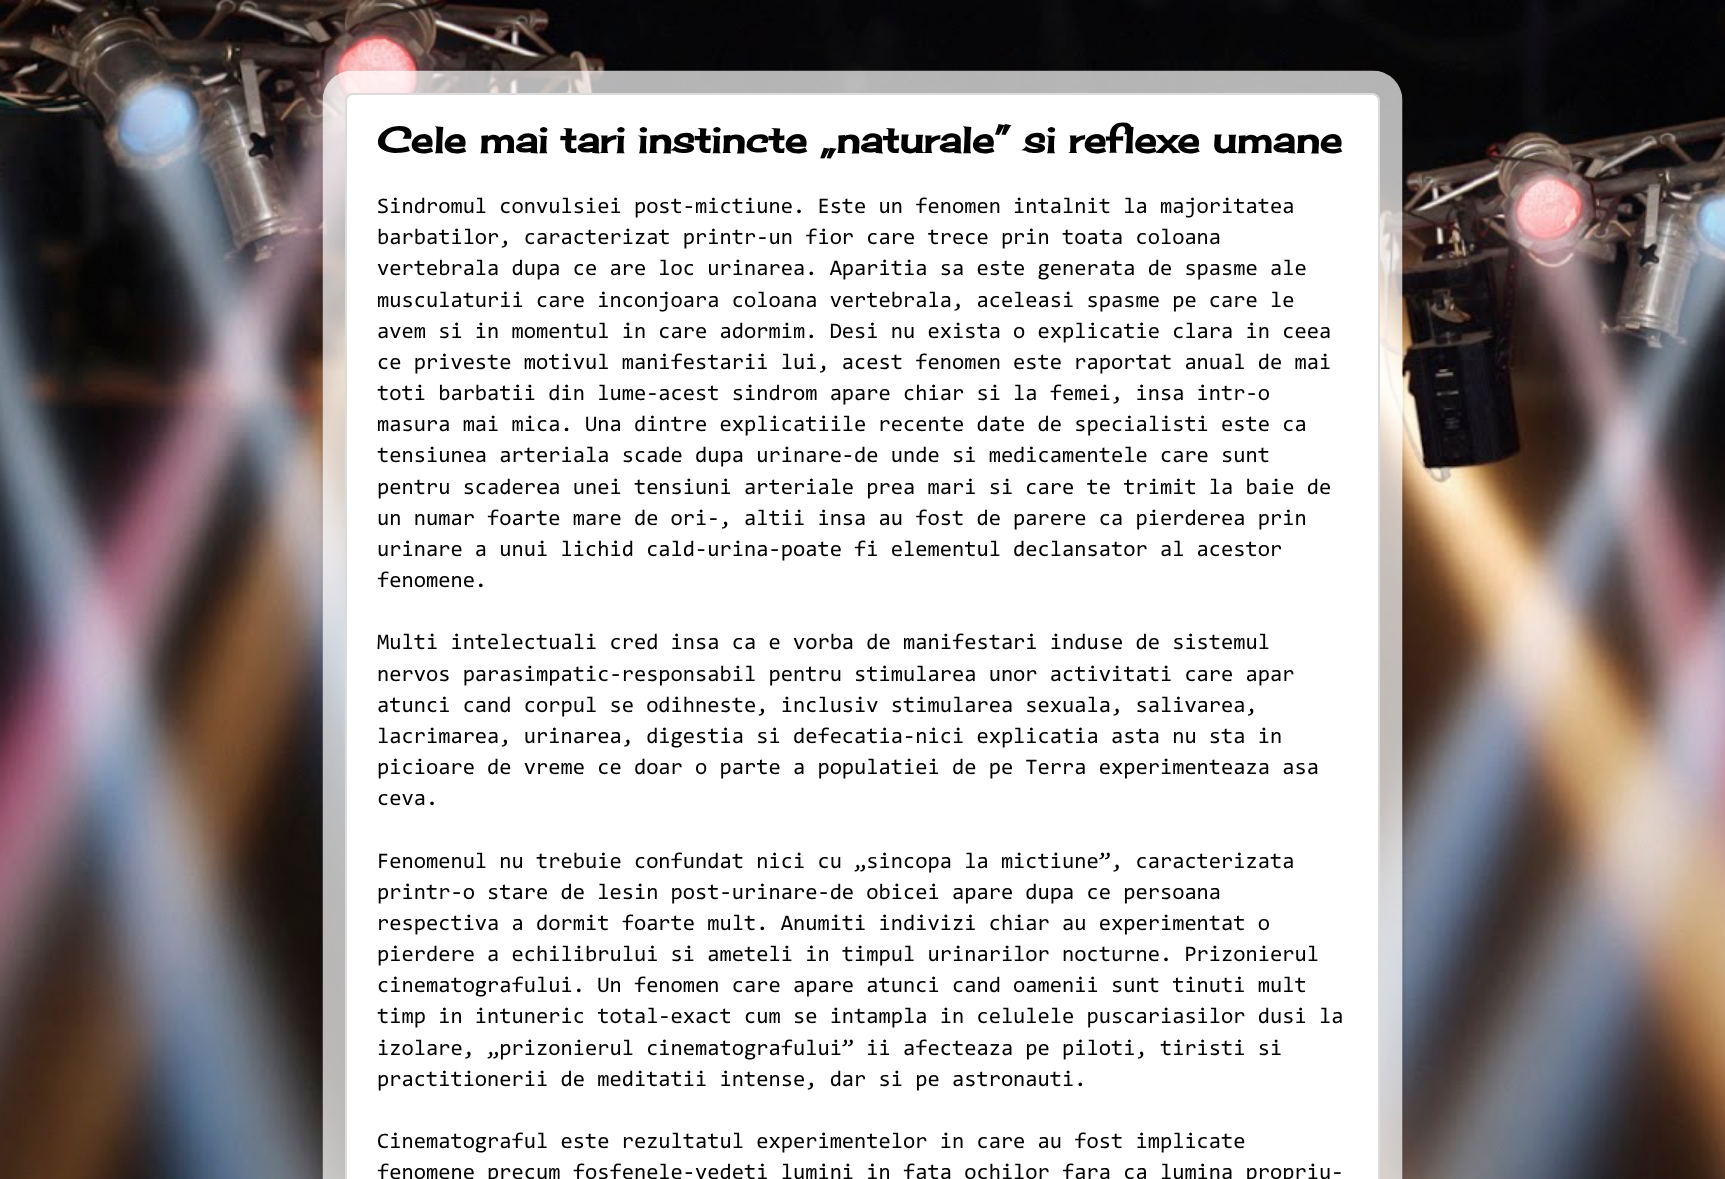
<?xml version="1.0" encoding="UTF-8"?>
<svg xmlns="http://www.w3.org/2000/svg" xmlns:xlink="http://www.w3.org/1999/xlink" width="1725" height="1179">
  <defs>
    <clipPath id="clip1"><path d="M 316 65 h 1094 v 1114 h -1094 z m 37 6 h 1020 c 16.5 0 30 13.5 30 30 v 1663 h -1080 v -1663 c 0 -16.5 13.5 -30 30 -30 z" clip-rule="evenodd" /></clipPath>
  </defs>
  <rect width="100%" height="100%" fill="#ffffff" />
  <image x="0" y="0" width="1725" height="1179" xlink:href="image1.png" />
  <g clip-path="url(#clip1)">
    <rect x="323" y="72" width="1080" height="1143" rx="30" fill="#000000" fill-opacity="0.15" filter="blur(2px)" />
  </g>
  <image x="322" y="70" width="1081" height="1109" xlink:href="image2.png" />
  <rect x="346" y="94" width="1033" height="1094" rx="7" fill="#ffffff" stroke="#dbdbdb" stroke-width="2" />
  <text x="377" y="153" style="font-family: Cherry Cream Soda; font-size: 36px; font-weight: bold; fill: #000000">Cele mai tari instincte „naturale” si reflexe umane</text>
  <text x="377" y="213" style="font-family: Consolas; font-size: 22.25px; fill: #000000">Sindromul convulsiei post-mictiune. Este un fenomen intalnit la majoritatea</text>
  <text x="377" y="244" style="font-family: Consolas; font-size: 22.25px; fill: #000000">barbatilor, caracterizat printr-un fior care trece prin toata coloana</text>
  <text x="377" y="275" style="font-family: Consolas; font-size: 22.25px; fill: #000000">vertebrala dupa ce are loc urinarea. Aparitia sa este generata de spasme ale</text>
  <text x="377" y="307" style="font-family: Consolas; font-size: 22.25px; fill: #000000">musculaturii care inconjoara coloana vertebrala, aceleasi spasme pe care le</text>
  <text x="377" y="338" style="font-family: Consolas; font-size: 22.25px; fill: #000000">avem si in momentul in care adormim. Desi nu exista o explicatie clara in ceea</text>
  <text x="377" y="369" style="font-family: Consolas; font-size: 22.25px; fill: #000000">ce priveste motivul manifestarii lui, acest fenomen este raportat anual de mai</text>
  <text x="377" y="400" style="font-family: Consolas; font-size: 22.25px; fill: #000000">toti barbatii din lume-acest sindrom apare chiar si la femei, insa intr-o</text>
  <text x="377" y="431" style="font-family: Consolas; font-size: 22.25px; fill: #000000">masura mai mica. Una dintre explicatiile recente date de specialisti este ca</text>
  <text x="377" y="462" style="font-family: Consolas; font-size: 22.25px; fill: #000000">tensiunea arteriala scade dupa urinare-de unde si medicamentele care sunt</text>
  <text x="377" y="494" style="font-family: Consolas; font-size: 22.25px; fill: #000000">pentru scaderea unei tensiuni arteriale prea mari si care te trimit la baie de</text>
  <text x="377" y="525" style="font-family: Consolas; font-size: 22.25px; fill: #000000">un numar foarte mare de ori-, altii insa au fost de parere ca pierderea prin</text>
  <text x="377" y="556" style="font-family: Consolas; font-size: 22.25px; fill: #000000">urinare a unui lichid cald-urina-poate fi elementul declansator al acestor</text>
  <text x="377" y="587" style="font-family: Consolas; font-size: 22.25px; fill: #000000">fenomene.</text>
  <text x="377" y="649" style="font-family: Consolas; font-size: 22.25px; fill: #000000">Multi intelectuali cred insa ca e vorba de manifestari induse de sistemul</text>
  <text x="377" y="681" style="font-family: Consolas; font-size: 22.25px; fill: #000000">nervos parasimpatic-responsabil pentru stimularea unor activitati care apar</text>
  <text x="377" y="712" style="font-family: Consolas; font-size: 22.25px; fill: #000000">atunci cand corpul se odihneste, inclusiv stimularea sexuala, salivarea,</text>
  <text x="377" y="743" style="font-family: Consolas; font-size: 22.25px; fill: #000000">lacrimarea, urinarea, digestia si defecatia-nici explicatia asta nu sta in</text>
  <text x="377" y="774" style="font-family: Consolas; font-size: 22.25px; fill: #000000">picioare de vreme ce doar o parte a populatiei de pe Terra experimenteaza asa</text>
  <text x="377" y="805" style="font-family: Consolas; font-size: 22.25px; fill: #000000">ceva.</text>
  <text x="377" y="868" style="font-family: Consolas; font-size: 22.25px; fill: #000000">Fenomenul nu trebuie confundat nici cu „sincopa la mictiune”, caracterizata</text>
  <text x="377" y="899" style="font-family: Consolas; font-size: 22.25px; fill: #000000">printr-o stare de lesin post-urinare-de obicei apare dupa ce persoana</text>
  <text x="377" y="930" style="font-family: Consolas; font-size: 22.25px; fill: #000000">respectiva a dormit foarte mult. Anumiti indivizi chiar au experimentat o</text>
  <text x="377" y="961" style="font-family: Consolas; font-size: 22.25px; fill: #000000">pierdere a echilibrului si ameteli in timpul urinarilor nocturne. Prizonierul</text>
  <text x="377" y="992" style="font-family: Consolas; font-size: 22.25px; fill: #000000">cinematografului. Un fenomen care apare atunci cand oamenii sunt tinuti mult</text>
  <text x="377" y="1023" style="font-family: Consolas; font-size: 22.25px; fill: #000000">timp in intuneric total-exact cum se intampla in celulele puscariasilor dusi la</text>
  <text x="377" y="1055" style="font-family: Consolas; font-size: 22.25px; fill: #000000">izolare, „prizonierul cinematografului” ii afecteaza pe piloti, tiristi si</text>
  <text x="377" y="1086" style="font-family: Consolas; font-size: 22.25px; fill: #000000">practitionerii de meditatii intense, dar si pe astronauti.</text>
  <text x="377" y="1148" style="font-family: Consolas; font-size: 22.25px; fill: #000000">Cinematograful este rezultatul experimentelor in care au fost implicate</text>
  <text x="377" y="1179" style="font-family: Consolas; font-size: 22.25px; fill: #000000">fenomene precum fosfenele-vedeti lumini in fata ochilor fara ca lumina propriu-</text>
</svg>
